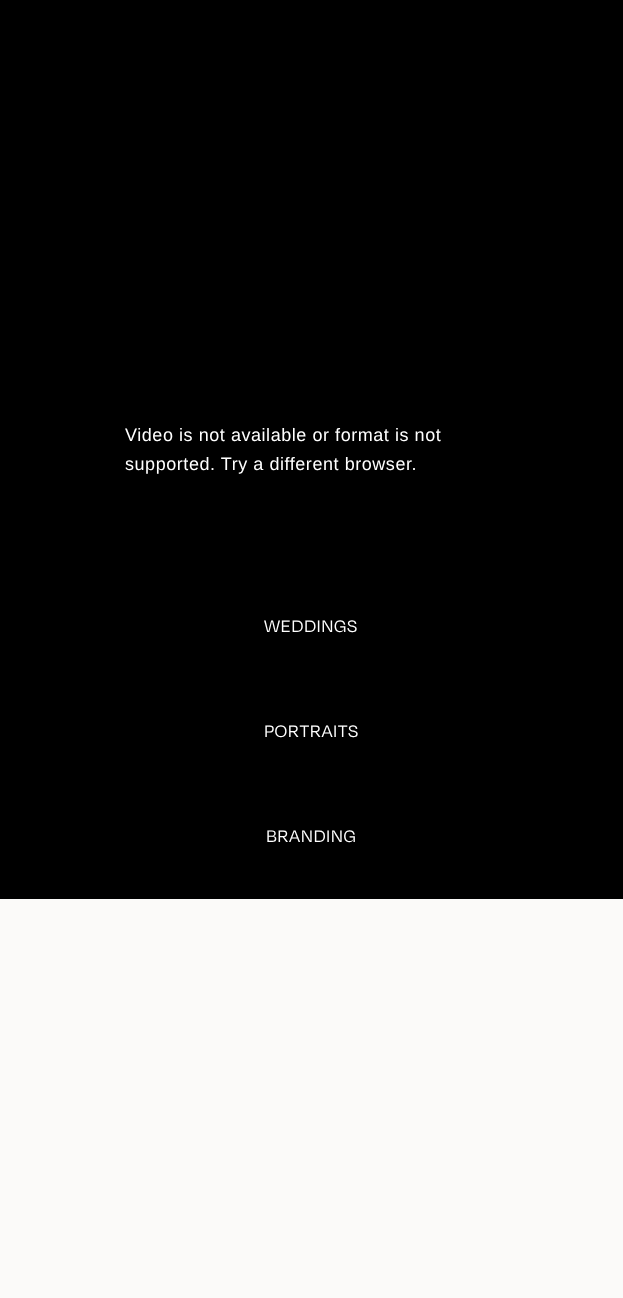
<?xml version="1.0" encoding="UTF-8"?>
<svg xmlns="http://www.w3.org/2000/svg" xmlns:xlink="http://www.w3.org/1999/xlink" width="623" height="1298">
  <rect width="100%" height="100%" fill="#fbfaf9" />
  <rect width="623" height="899" fill="#000000" />
  <text x="125" y="441" style="font-family: Liberation Sans; font-size: 18px; letter-spacing: 0.55px; fill: #ffffff">Video is not available or format is not</text>
  <text x="125" y="470" style="font-family: Liberation Sans; font-size: 18px; letter-spacing: 0.55px; fill: #ffffff">supported. Try a different browser.</text>
  <text x="264" y="632" style="font-family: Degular; font-size: 19.25px; letter-spacing: 0.5px; fill: #ffffff">WEDDINGS</text>
  <text x="264" y="737" style="font-family: Degular; font-size: 19.25px; letter-spacing: 0.5px; fill: #ffffff">PORTRAITS</text>
  <text x="266" y="842" style="font-family: Degular; font-size: 19.25px; letter-spacing: 0.5px; fill: #ffffff">BRANDING</text>
</svg>
